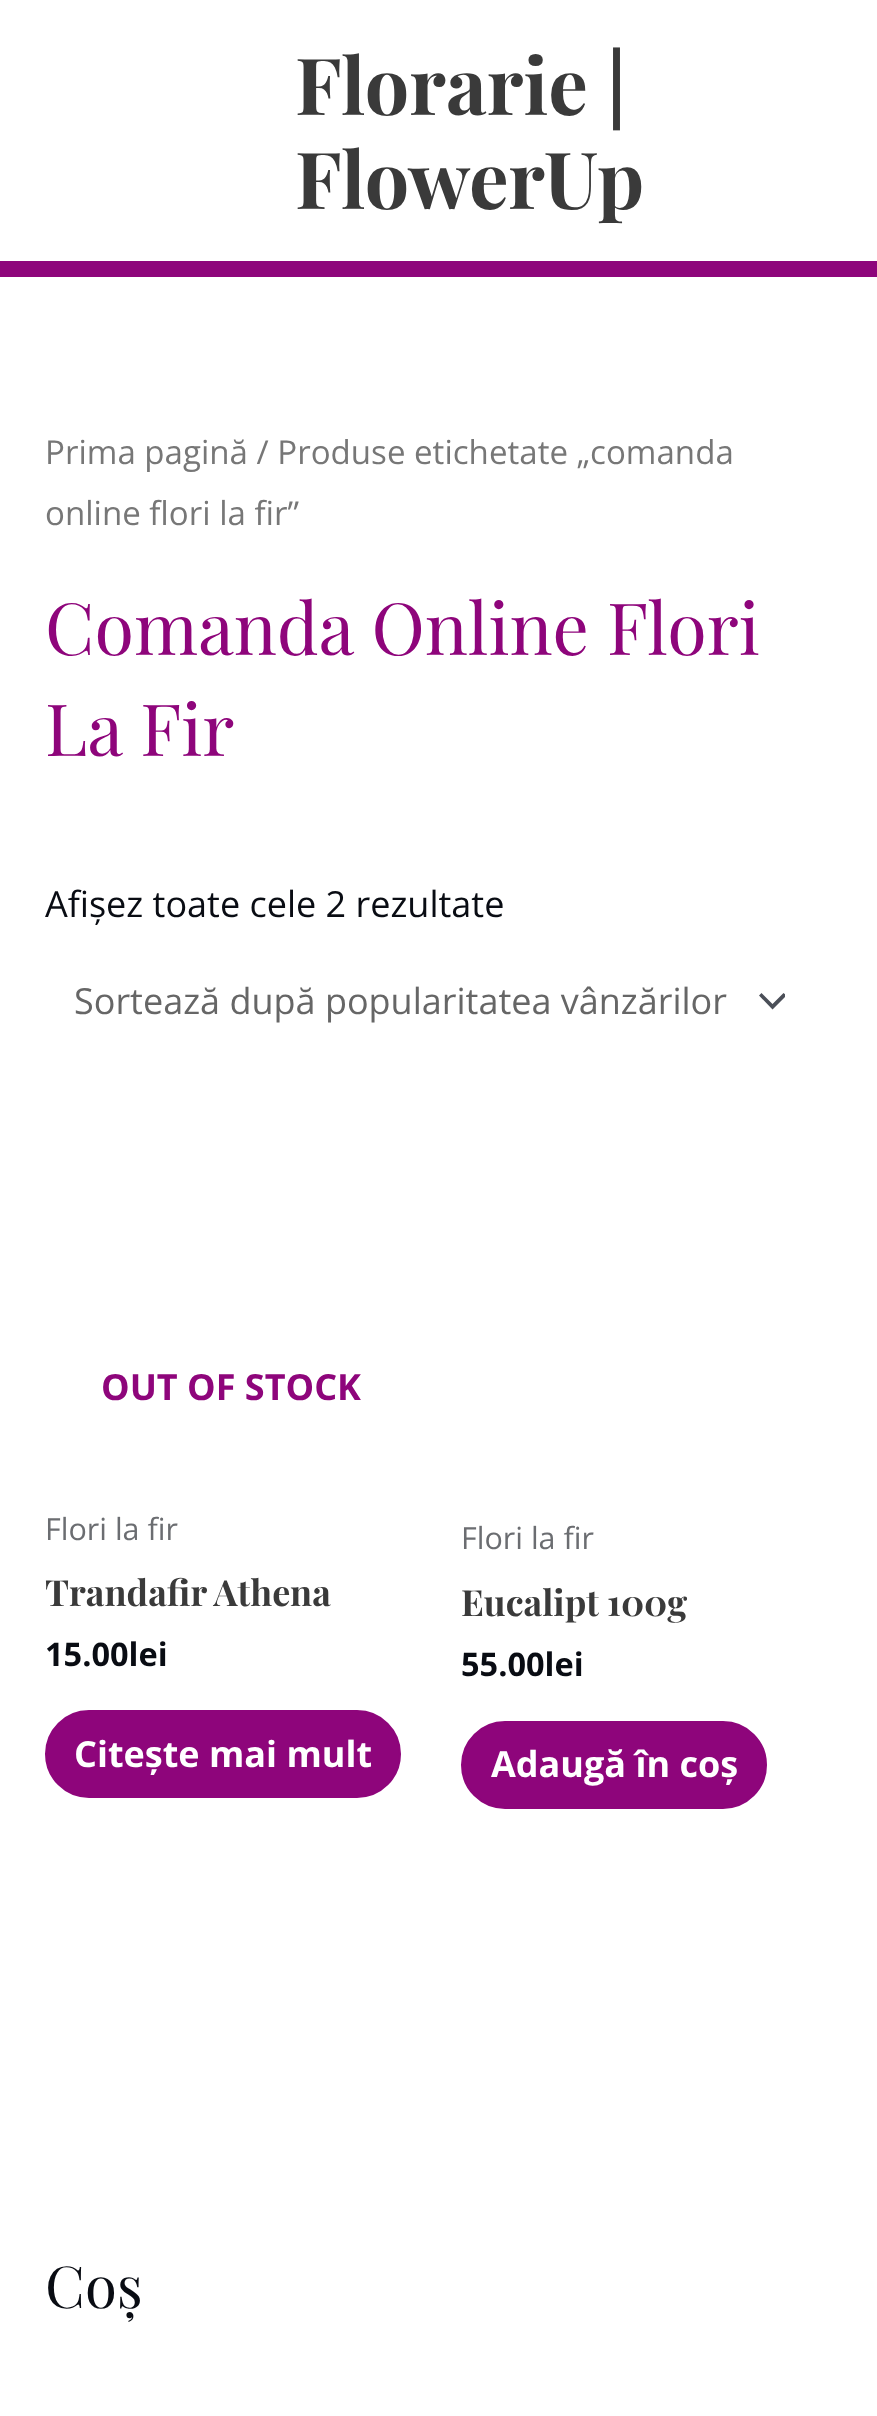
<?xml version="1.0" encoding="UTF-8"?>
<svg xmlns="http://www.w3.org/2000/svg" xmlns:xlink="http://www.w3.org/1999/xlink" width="877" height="2416">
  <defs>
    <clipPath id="clip1"><rect x="758" y="992" width="27" height="18" /></clipPath>
  </defs>
  <rect width="100%" height="100%" fill="#ffffff" />
  <rect y="261" width="877" height="16" fill="#8e057b" />
  <g clip-path="url(#clip1)">
    <path d="M 759 995.5 l 13.5 14 l 14 -14 l -3 -2.5 l -11 11 l -11 -11 z" fill="#4b4f58" />
  </g>
  <rect x="46" y="1711" width="354" height="86" rx="43" fill="#8e057b" stroke="#8e057b" stroke-width="2" />
  <rect x="462" y="1722" width="304" height="86" rx="43" fill="#8e057b" stroke="#8e057b" stroke-width="2" />
  <text x="295" y="115" style="font-family: Playfair Display; font-size: 78.75px; font-weight: bold; fill: #3a3a3a">Florarie |</text>
  <text x="295" y="209" style="font-family: Playfair Display; font-size: 78.75px; font-weight: bold; fill: #3a3a3a">FlowerUp</text>
  <text x="45" y="464" style="font-family: Open Sans; font-size: 33.1px; fill: #777777">Prima pagină / Produse etichetate „comanda</text>
  <text x="45" y="525" style="font-family: Open Sans; font-size: 33.1px; fill: #777777">online flori la fir”</text>
  <text x="45" y="655" style="font-family: Playfair Display; font-size: 72px; fill: #8e057b">Comanda Online Flori</text>
  <text x="45" y="756" style="font-family: Playfair Display; font-size: 72px; fill: #8e057b">La Fir</text>
  <text x="45" y="917" style="font-family: Open Sans; font-size: 36px; fill: #090c13">Afișez toate cele 2 rezultate</text>
  <text x="74" y="1014" style="font-family: Open Sans; font-size: 36px; fill: #666666">Sortează după popularitatea vânzărilor</text>
  <text x="101" y="1400" style="font-family: Open Sans; font-size: 36px; font-weight: bold; fill: #8e057b">OUT OF STOCK</text>
  <text x="45" y="1540" style="font-family: Open Sans; font-size: 30.5px; fill: #6b6d71">Flori la fir</text>
  <text x="45" y="1606" style="font-family: Playfair Display; font-size: 36px; font-weight: bold; fill: #3a3a3a">Trandafir Athena</text>
  <text x="45" y="1666" style="font-family: Open Sans; font-size: 32.5px; font-weight: bold; fill: #090c13">15.00lei</text>
  <text x="74" y="1767" style="font-family: Open Sans; font-size: 36px; font-weight: bold; fill: #ffffff">Citește mai mult</text>
  <text x="461" y="1549" style="font-family: Open Sans; font-size: 30.5px; fill: #6b6d71">Flori la fir</text>
  <text x="461" y="1616" style="font-family: Playfair Display; font-size: 36px; font-weight: bold; fill: #3a3a3a">Eucalipt 100g</text>
  <text x="461" y="1676" style="font-family: Open Sans; font-size: 32.5px; font-weight: bold; fill: #090c13">55.00lei</text>
  <text x="491" y="1777" style="font-family: Open Sans; font-size: 36px; font-weight: bold; fill: #ffffff">Adaugă în coș</text>
  <text x="45" y="2308" style="font-family: Playfair Display; font-size: 58px; fill: #090c13">Coș</text>
</svg>
